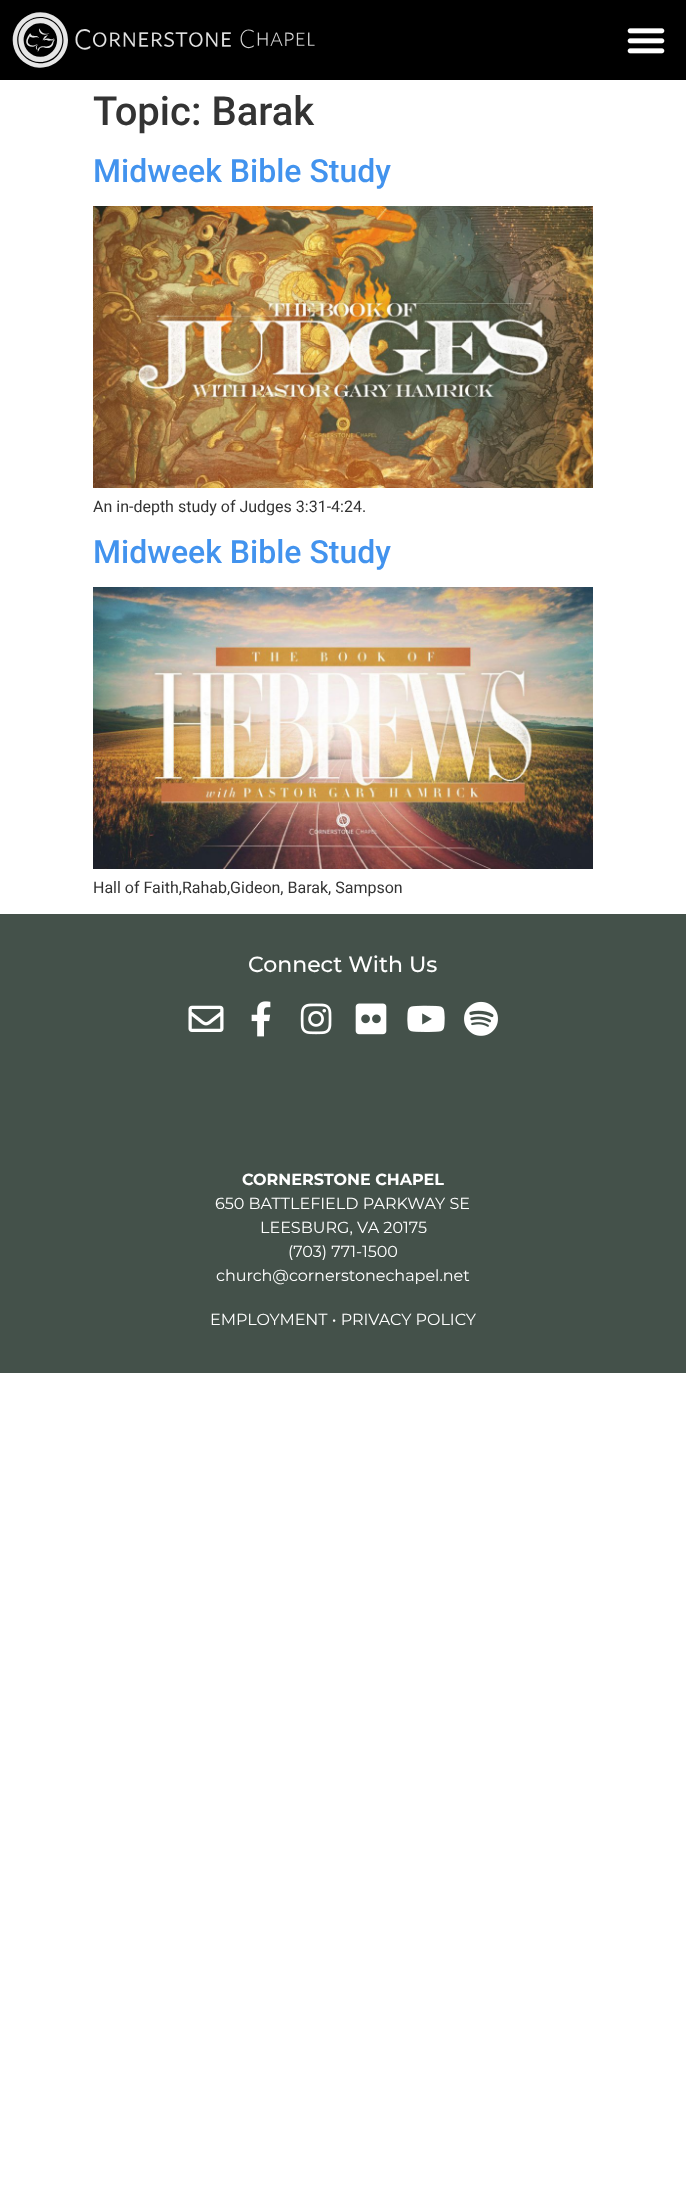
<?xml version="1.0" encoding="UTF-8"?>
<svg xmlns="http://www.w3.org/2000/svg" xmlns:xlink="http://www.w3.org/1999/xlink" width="686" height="2186">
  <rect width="100%" height="100%" fill="#ffffff" />
  <rect width="686" height="80" fill="#000000" />
  <image x="12" y="12" width="56" height="56" xlink:href="image1.png" />
  <image x="75" y="29" width="240" height="21" xlink:href="image2.png" />
  <image x="627" y="28" width="38" height="26" xlink:href="image3.png" />
  <image x="93" y="206" width="500" height="282" xlink:href="image4.png" />
  <image x="93" y="587" width="500" height="282" xlink:href="image5.png" />
  <rect y="914" width="686" height="459" fill="#44514a" />
  <image x="188" y="1005" width="36" height="27" xlink:href="image6.png" />
  <image x="251" y="1001" width="20" height="36" xlink:href="image7.png" />
  <image x="300" y="1003" width="32" height="32" xlink:href="image8.png" />
  <image x="355" y="1003" width="32" height="32" xlink:href="image9.png" />
  <image x="407" y="1005" width="38" height="27" xlink:href="image10.png" />
  <image x="464" y="1001" width="34" height="35" xlink:href="image11.png" />
  <text x="93" y="125" style="font-family: Roboto; font-size: 40px; font-weight: 500; fill: #333333">Topic: Barak</text>
  <text x="93" y="182" style="font-family: Roboto; font-size: 32px; font-weight: 500; fill: #4293ee">Midweek Bible Study</text>
  <text x="93" y="512" style="font-family: Roboto; font-size: 16px; fill: #333333">An in-depth study of Judges 3:31-4:24.</text>
  <text x="93" y="563" style="font-family: Roboto; font-size: 32px; font-weight: 500; fill: #4293ee">Midweek Bible Study</text>
  <text x="93" y="893" style="font-family: Roboto; font-size: 16px; fill: #333333">Hall of Faith,Rahab,Gideon, Barak, Sampson</text>
  <text x="248" y="972" style="font-family: Montserrat; font-size: 22px; font-weight: 500; fill: #ffffff">Connect With Us</text>
  <text x="242" y="1185" style="font-family: Montserrat; font-size: 16px; font-weight: bold; fill: #ffffff">CORNERSTONE CHAPEL</text>
  <text x="215" y="1209" style="font-family: Montserrat; font-size: 16px; fill: #ffffff">650 BATTLEFIELD PARKWAY SE</text>
  <text x="260" y="1233" style="font-family: Montserrat; font-size: 16px; fill: #ffffff">LEESBURG, VA 20175</text>
  <text x="288" y="1257" style="font-family: Montserrat; font-size: 16px; fill: #ffffff">(703) 771-1500</text>
  <text x="216" y="1281" style="font-family: Montserrat; font-size: 16px; fill: #ffffff">church@cornerstonechapel.net</text>
  <text x="210" y="1325" style="font-family: Montserrat; font-size: 16px; fill: #ffffff">EMPLOYMENT • PRIVACY POLICY</text>
</svg>
